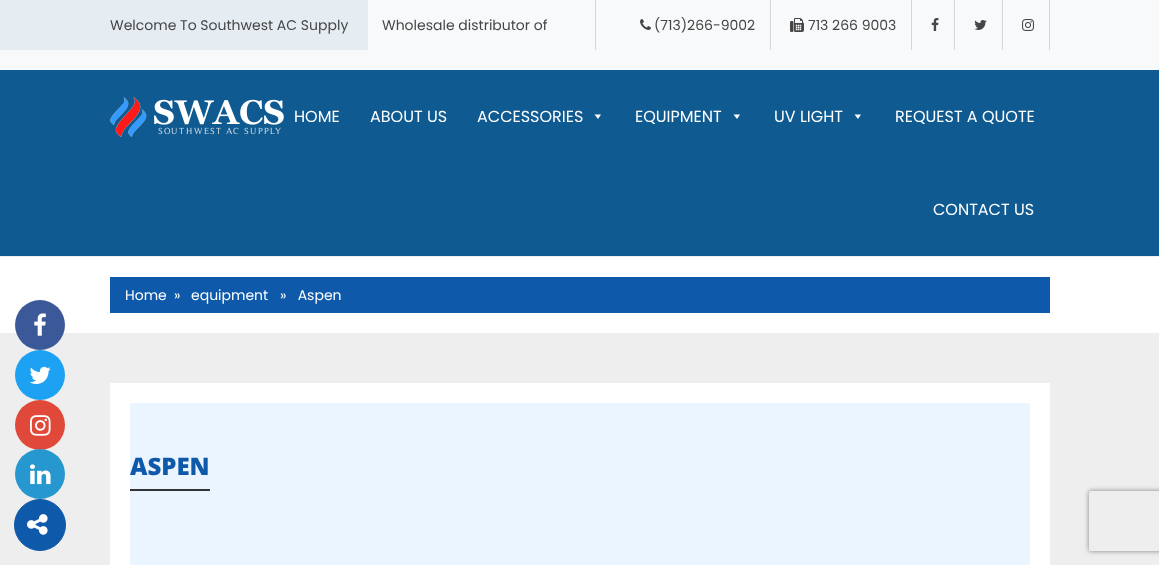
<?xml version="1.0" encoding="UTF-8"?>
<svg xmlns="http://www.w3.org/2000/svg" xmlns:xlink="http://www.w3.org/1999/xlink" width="1159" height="565">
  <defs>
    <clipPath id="clip1"><path d="M 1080 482 h 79 v 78 h -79 z m 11 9 h 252 c 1 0 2 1 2 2 v 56 c 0 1 -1 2 -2 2 h -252 c -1 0 -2 -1 -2 -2 v -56 c 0 -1 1 -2 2 -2 z" clip-rule="evenodd" /></clipPath>
  </defs>
  <rect width="100%" height="100%" fill="#ffffff" />
  <rect y="70" width="1159" height="186" fill="#0f5b91" />
  <rect width="1159" height="70" fill="#f8f9fa" />
  <rect width="368" height="50" fill="#e5edf3" />
  <rect x="595" width="1" height="50" fill="#d4d6d8" />
  <rect x="770" width="1" height="50" fill="#d4d6d8" />
  <image x="640" y="19" width="11" height="11" xlink:href="image1.png" />
  <rect x="911" width="1" height="50" fill="#d4d6d8" />
  <image x="790" y="18" width="14" height="14" xlink:href="image2.png" />
  <rect x="954" width="1" height="50" fill="#d4d6d8" />
  <image x="931" y="18" width="8" height="13" xlink:href="image3.png" />
  <rect x="1002" width="1" height="50" fill="#d4d6d8" />
  <image x="974" y="20" width="13" height="10" xlink:href="image4.png" />
  <rect x="1049" width="1" height="50" fill="#d4d6d8" />
  <image x="1022" y="19" width="12" height="12" xlink:href="image5.png" />
  <image x="110" y="96" width="174" height="41" xlink:href="image6.png" />
  <path d="M 601 114.5 l -3 4.5 l -3.5 -4.5 z" fill="#ffffff" />
  <path d="M 740 114.5 l -3 4.5 l -3.5 -4.5 z" fill="#ffffff" />
  <path d="M 861 114.5 l -3 4.5 l -3.5 -4.5 z" fill="#ffffff" />
  <rect y="256" width="1159" height="1" fill="#eeeeee" />
  <rect x="110" y="277" width="940" height="36" fill="#0e59a9" />
  <rect y="333" width="1159" height="232" fill="#eeeeee" />
  <circle cx="40" cy="325" r="25" fill="#3b5999" />
  <image x="34" y="313" width="12" height="23" xlink:href="image7.png" />
  <circle cx="40" cy="375" r="25" fill="#1da1f3" />
  <image x="29" y="366" width="22" height="18" xlink:href="image8.png" />
  <circle cx="40" cy="425" r="25" fill="#e0483a" />
  <image x="30" y="415" width="21" height="21" xlink:href="image9.png" />
  <circle cx="40" cy="474" r="25" fill="#2797cf" />
  <image x="30" y="464" width="21" height="21" xlink:href="image10.png" />
  <circle cx="40" cy="525" r="25.5" fill="#0e59a9" stroke="#0e59a9" />
  <image x="27" y="514" width="21" height="21" xlink:href="image11.png" />
  <rect x="110" y="383" width="940" height="182" fill="#ffffff" />
  <rect x="130" y="403" width="900" height="162" fill="#ebf5ff" />
  <rect x="130" y="489" width="80" height="2" fill="#333333" />
  <g clip-path="url(#clip1)">
    <rect x="1089" y="491" width="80" height="60" rx="2" fill="#808080" filter="blur(2.5px)" />
  </g>
  <text x="110" y="30" style="font-family: Poppins; font-size: 14px; fill: #464646">Welcome To Southwest AC Supply</text>
  <text x="382" y="30" style="font-family: Poppins; font-size: 14px; fill: #464646">Wholesale distributor of</text>
  <text x="654" y="30" style="font-family: Poppins; font-size: 14px; fill: #464646">(713)266-9002</text>
  <text x="808" y="30" style="font-family: Poppins; font-size: 14px; fill: #464646">713 266 9003</text>
  <text x="294" y="122" style="font-family: Poppins; font-size: 16px; fill: #ffffff">HOME</text>
  <text x="370" y="122" style="font-family: Poppins; font-size: 16px; fill: #ffffff">ABOUT US</text>
  <text x="477" y="122" style="font-family: Poppins; font-size: 16px; fill: #ffffff">ACCESSORIES</text>
  <text x="635" y="122" style="font-family: Poppins; font-size: 16px; fill: #ffffff">EQUIPMENT</text>
  <text x="774" y="122" style="font-family: Poppins; font-size: 16px; fill: #ffffff">UV LIGHT</text>
  <text x="895" y="122" style="font-family: Poppins; font-size: 16px; fill: #ffffff">REQUEST A QUOTE</text>
  <text x="933" y="215" style="font-family: Poppins; font-size: 16px; fill: #ffffff">CONTACT US</text>
  <text x="125" y="300" style="font-family: Poppins; font-size: 14px; fill: #ffffff">Home</text>
  <text x="174" y="300" style="font-family: Poppins; font-size: 14px; fill: #ffffff">»</text>
  <text x="191" y="300" style="font-family: Poppins; font-size: 14px; fill: #ffffff">equipment</text>
  <text x="280" y="300" style="font-family: Poppins; font-size: 14px; fill: #ffffff" xml:space="preserve">»   Aspen</text>
  <text x="130" y="475" style="font-family: Open Sans; font-size: 24px; font-weight: 800; fill: #0e59a9">ASPEN</text>
</svg>
